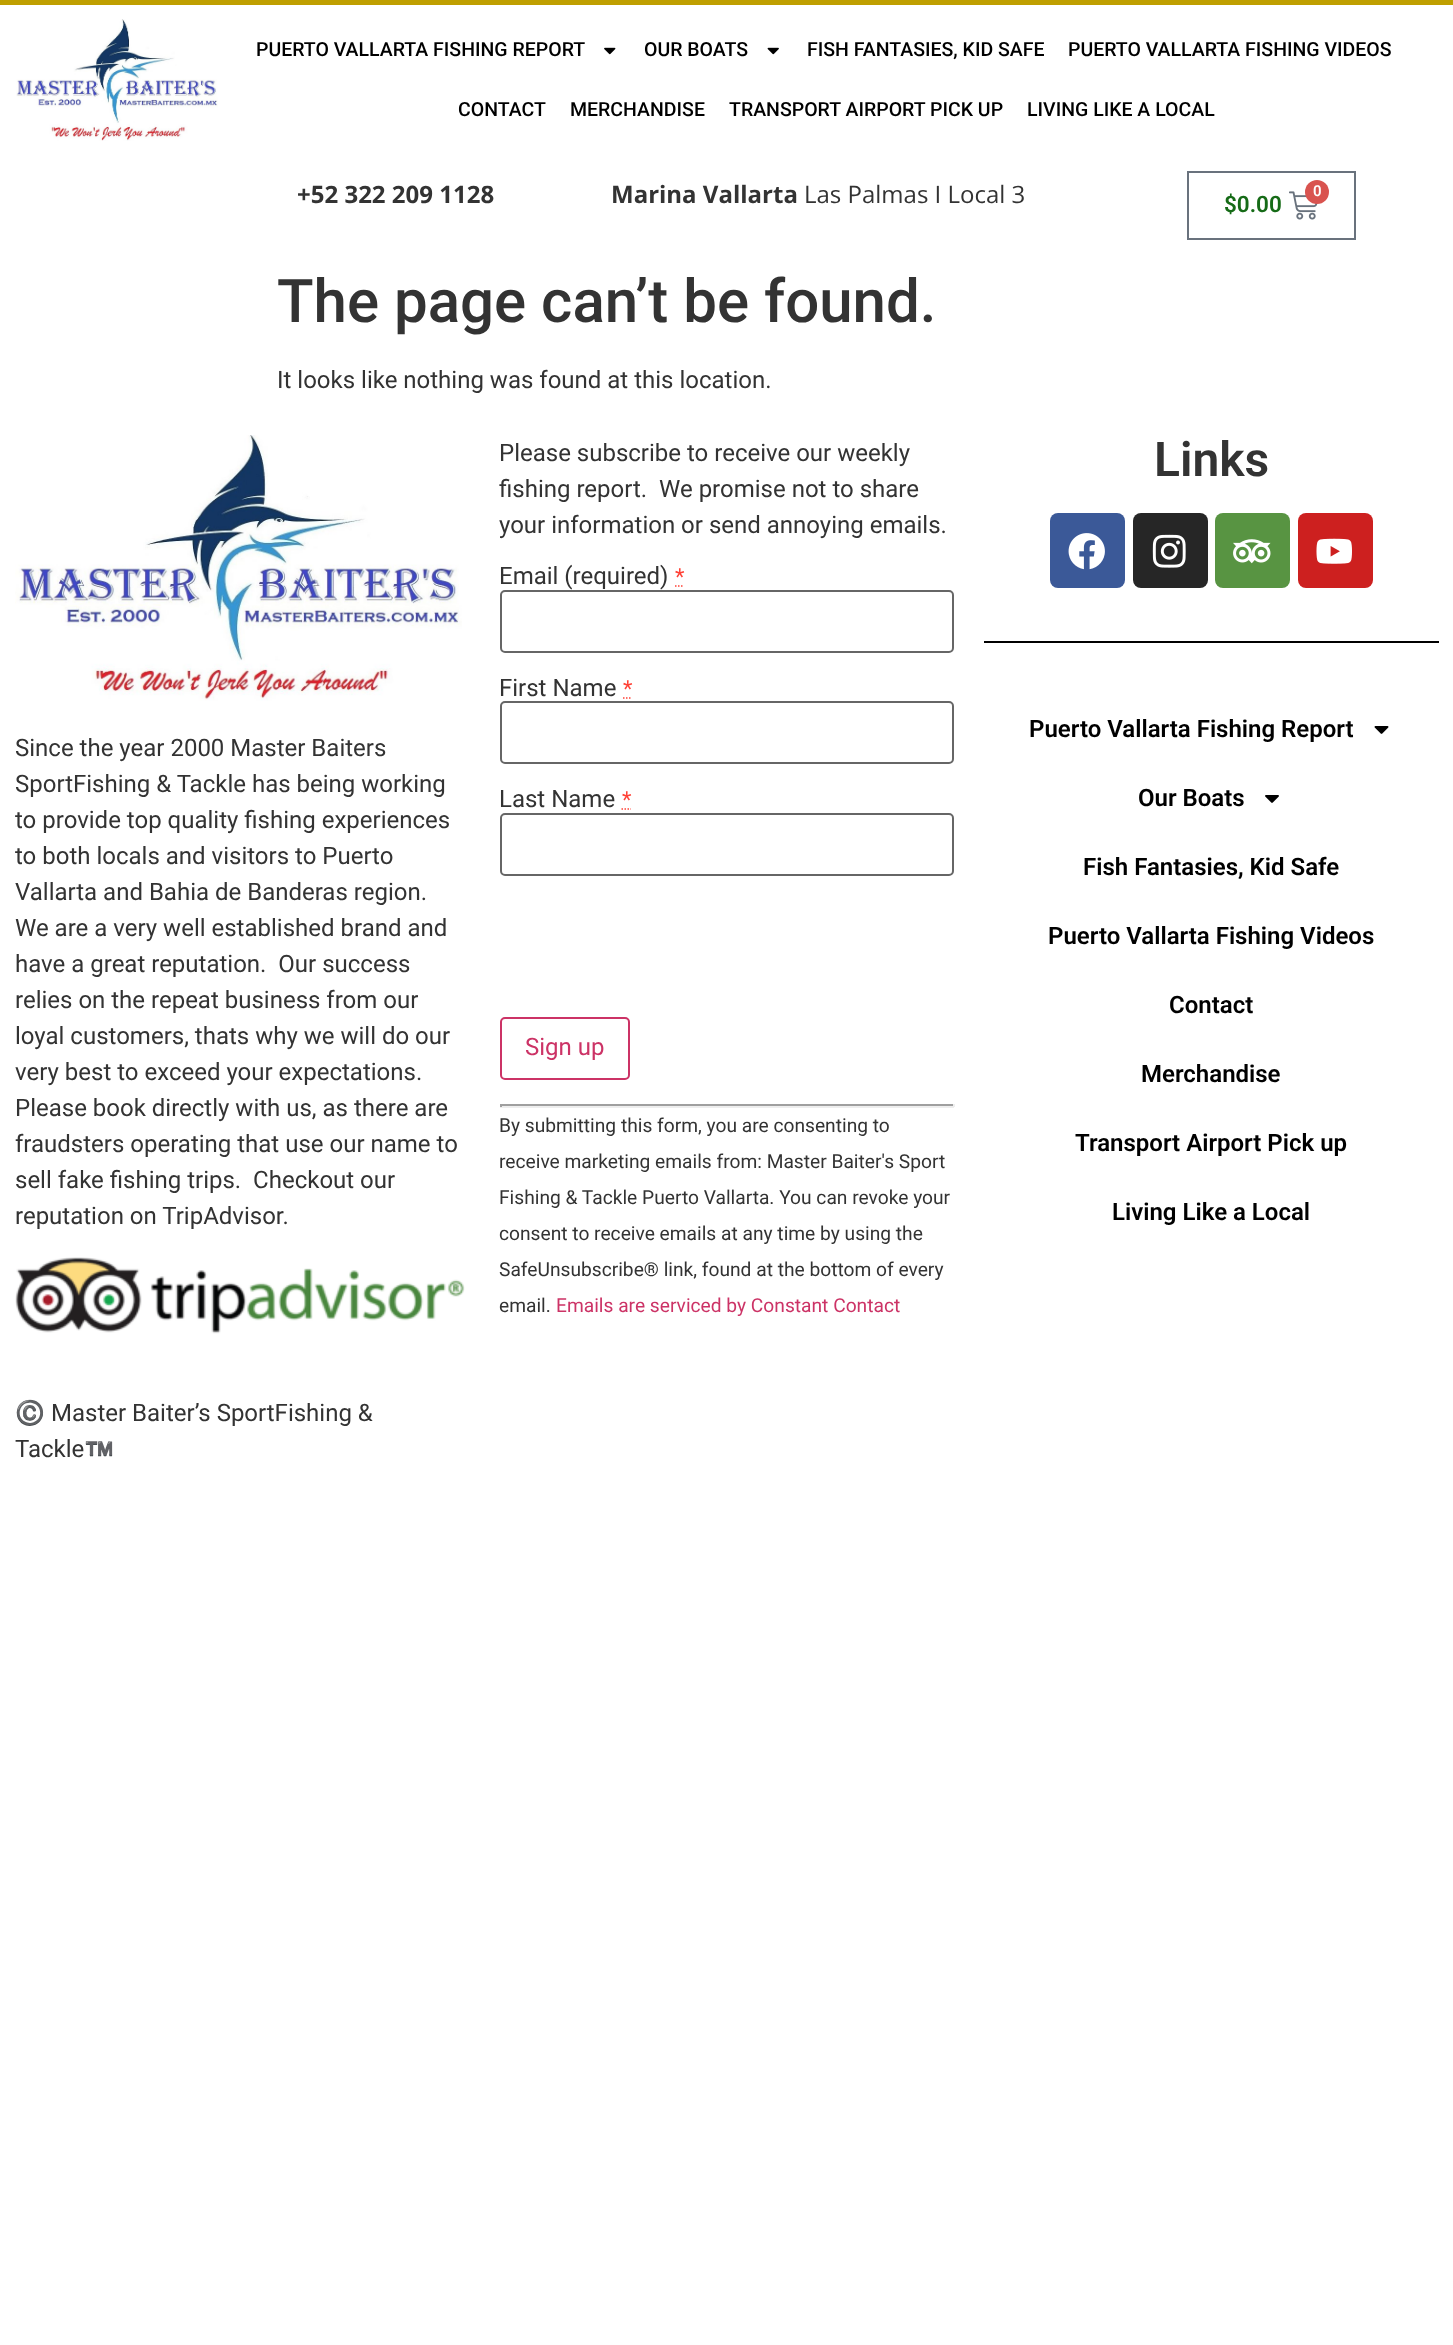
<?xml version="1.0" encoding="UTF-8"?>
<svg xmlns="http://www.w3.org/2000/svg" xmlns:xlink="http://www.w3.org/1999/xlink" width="1453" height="2345">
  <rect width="100%" height="100%" fill="#ffffff" />
  <rect width="1453" height="5" fill="#bf9f00" />
  <image x="16" y="19" width="202" height="122" xlink:href="image1.png" />
  <image x="604" y="47" width="12" height="8" xlink:href="image2.png" />
  <image x="767" y="47" width="12" height="8" xlink:href="image3.png" />
  <rect x="1188" y="172" width="167" height="67" fill="none" stroke="#69727d" stroke-width="2" />
  <image x="1289" y="191" width="29" height="29" xlink:href="image4.png" />
  <circle cx="1317" cy="192" r="12" fill="#d9534f" />
  <image x="15" y="435" width="447" height="266" xlink:href="image5.png" />
  <image x="15" y="1257" width="450" height="77" xlink:href="image6.png" />
  <path d="M 675 586 h 1.5 m 1.5 0 h 1.5 m 1.5 0 h 1.5 m 1.5 0 h 0" fill="none" stroke="#ff4136" stroke-width="1.5" />
  <rect x="501" y="591" width="452" height="61" rx="4" fill="none" stroke="#666666" stroke-width="2" />
  <path d="M 623 698 h 1.5 m 1.5 0 h 1.5 m 1.5 0 h 1.5 m 1.5 0 h 0" fill="none" stroke="#ff4136" stroke-width="1.5" />
  <rect x="501" y="702" width="452" height="61" rx="4" fill="none" stroke="#666666" stroke-width="2" />
  <path d="M 621.5 809 h 1.5 m 1.5 0 h 1.5 m 1.5 0 h 1.5 m 1.5 0 h 0.5" fill="none" stroke="#ff4136" stroke-width="1.5" />
  <rect x="501" y="814" width="452" height="61" rx="4" fill="none" stroke="#666666" stroke-width="2" />
  <rect x="501" y="1018" width="128" height="61" rx="4" fill="none" stroke="#cc3366" stroke-width="2" />
  <rect x="500" y="1104" width="454" height="2" fill="#9f9f9f" />
  <rect x="953" y="1104" width="2" height="3" fill="#eeeeee" />
  <rect x="500" y="1106" width="454" height="2" fill="#eeeeee" />
  <rect x="500" y="1104" width="2" height="3" fill="#9f9f9f" />
  <rect x="1050" y="513" width="75" height="75" rx="8" fill="#3b5998" />
  <image x="1068" y="533" width="37" height="37" xlink:href="image7.png" />
  <rect x="1133" y="513" width="75" height="75" rx="8" fill="#262626" />
  <image x="1152" y="534" width="34" height="34" xlink:href="image8.png" />
  <rect x="1215" y="513" width="75" height="75" rx="8" fill="#589442" />
  <image x="1233" y="539" width="38" height="25" xlink:href="image9.png" />
  <rect x="1298" y="513" width="75" height="75" rx="8" fill="#cd201f" />
  <image x="1316" y="538" width="36" height="26" xlink:href="image10.png" />
  <rect x="984" y="641" width="455" height="2" fill="#000000" />
  <image x="1374" y="726" width="15" height="8" xlink:href="image11.png" />
  <image x="1265" y="795" width="14" height="8" xlink:href="image12.png" />
  <text x="256" y="56" style="font-family: Roboto; font-size: 19.5px; font-weight: 500; fill: #000000">PUERTO VALLARTA FISHING REPORT</text>
  <text x="644" y="56" style="font-family: Roboto; font-size: 19.5px; font-weight: 500; fill: #000000">OUR BOATS</text>
  <text x="807" y="56" style="font-family: Roboto; font-size: 19.5px; font-weight: 500; fill: #000000">FISH FANTASIES, KID SAFE</text>
  <text x="1068" y="56" style="font-family: Roboto; font-size: 19.5px; font-weight: 500; fill: #000000">PUERTO VALLARTA FISHING VIDEOS</text>
  <text x="458" y="116" style="font-family: Roboto; font-size: 19.5px; font-weight: 500; fill: #000000">CONTACT</text>
  <text x="570" y="116" style="font-family: Roboto; font-size: 19.5px; font-weight: 500; fill: #000000">MERCHANDISE</text>
  <text x="729" y="116" style="font-family: Roboto; font-size: 19.5px; font-weight: 500; fill: #000000">TRANSPORT AIRPORT PICK UP</text>
  <text x="1027" y="116" style="font-family: Roboto; font-size: 19.5px; font-weight: 500; fill: #000000">LIVING LIKE A LOCAL</text>
  <text x="297" y="203" style="font-family: Open Sans; font-size: 24px; font-weight: bold; fill: #333333">+52 322 209 1128</text>
  <text x="611" y="203" style="font-family: Open Sans; font-size: 24px; font-weight: bold; fill: #333333">Marina Vallarta</text>
  <text x="804" y="203" style="font-family: Open Sans; font-size: 24px; fill: #333333">Las Palmas I Local 3</text>
  <text x="1313" y="196" style="font-family: Roboto; font-size: 15px; font-weight: 600; fill: #ffffff">0</text>
  <text x="1224" y="212" style="font-family: Roboto; font-size: 22.5px; font-weight: 600; fill: #166b17">$0.00</text>
  <text x="277" y="322" style="font-family: Roboto; font-size: 60px; font-weight: 500; fill: #333333">The page can’t be found.</text>
  <text x="277" y="388" style="font-family: Roboto; font-size: 24px; fill: #333333">It looks like nothing was found at this location.</text>
  <text x="15" y="756" style="font-family: Roboto; font-size: 24px; fill: #333333">Since the year 2000 Master Baiters</text>
  <text x="15" y="792" style="font-family: Roboto; font-size: 24px; fill: #333333">SportFishing &amp; Tackle has being working</text>
  <text x="15" y="828" style="font-family: Roboto; font-size: 24px; fill: #333333">to provide top quality fishing experiences</text>
  <text x="15" y="864" style="font-family: Roboto; font-size: 24px; fill: #333333">to both locals and visitors to Puerto</text>
  <text x="15" y="900" style="font-family: Roboto; font-size: 24px; fill: #333333">Vallarta and Bahia de Banderas region.</text>
  <text x="15" y="936" style="font-family: Roboto; font-size: 24px; fill: #333333">We are a very well established brand and</text>
  <text x="15" y="972" style="font-family: Roboto; font-size: 24px; fill: #333333" xml:space="preserve">have a great reputation.  Our success</text>
  <text x="15" y="1008" style="font-family: Roboto; font-size: 24px; fill: #333333">relies on the repeat business from our</text>
  <text x="15" y="1044" style="font-family: Roboto; font-size: 24px; fill: #333333">loyal customers, thats why we will do our</text>
  <text x="15" y="1080" style="font-family: Roboto; font-size: 24px; fill: #333333">very best to exceed your expectations.</text>
  <text x="15" y="1116" style="font-family: Roboto; font-size: 24px; fill: #333333">Please book directly with us, as there are</text>
  <text x="15" y="1152" style="font-family: Roboto; font-size: 24px; fill: #333333">fraudsters operating that use our name to</text>
  <text x="15" y="1188" style="font-family: Roboto; font-size: 24px; fill: #333333" xml:space="preserve">sell fake fishing trips.  Checkout our</text>
  <text x="15" y="1224" style="font-family: Roboto; font-size: 24px; fill: #333333">reputation on TripAdvisor.</text>
  <text x="15" y="1421" style="font-family: Noto Color Emoji; font-size: 24px; fill: #333333">©️</text>
  <text x="51" y="1421" style="font-family: Roboto; font-size: 24px; fill: #333333">Master Baiter’s SportFishing &amp;</text>
  <text x="15" y="1457" style="font-family: Roboto; font-size: 24px; fill: #333333">Tackle</text>
  <text x="84" y="1457" style="font-family: Noto Color Emoji; font-size: 24px; fill: #333333">™️</text>
  <text x="499" y="461" style="font-family: Roboto; font-size: 24px; fill: #333333">Please subscribe to receive our weekly</text>
  <text x="499" y="497" style="font-family: Roboto; font-size: 24px; fill: #333333" xml:space="preserve">fishing report.  We promise not to share</text>
  <text x="499" y="533" style="font-family: Roboto; font-size: 24px; fill: #333333">your information or send annoying emails.</text>
  <text x="499" y="584" style="font-family: Roboto; font-size: 24px; fill: #333333">Email (required)</text>
  <text x="675" y="584" style="font-family: Roboto; font-size: 22px; fill: #ff4136">*</text>
  <text x="499" y="696" style="font-family: Roboto; font-size: 24px; fill: #333333">First Name</text>
  <text x="623" y="696" style="font-family: Roboto; font-size: 22px; fill: #ff4136">*</text>
  <text x="499" y="807" style="font-family: Roboto; font-size: 24px; fill: #333333">Last Name</text>
  <text x="622" y="807" style="font-family: Roboto; font-size: 22px; fill: #ff4136">*</text>
  <text x="525" y="1055" style="font-family: Roboto; font-size: 24px; fill: #cc3366">Sign up</text>
  <text x="499" y="1132" style="font-family: Roboto; font-size: 19.2px; fill: #333333">By submitting this form, you are consenting to</text>
  <text x="499" y="1168" style="font-family: Roboto; font-size: 19.2px; fill: #333333">receive marketing emails from: Master Baiter's Sport</text>
  <text x="499" y="1204" style="font-family: Roboto; font-size: 19.2px; fill: #333333">Fishing &amp; Tackle Puerto Vallarta. You can revoke your</text>
  <text x="499" y="1240" style="font-family: Roboto; font-size: 19.2px; fill: #333333">consent to receive emails at any time by using the</text>
  <text x="499" y="1276" style="font-family: Roboto; font-size: 19.2px; fill: #333333">SafeUnsubscribe® link, found at the bottom of every</text>
  <text x="499" y="1312" style="font-family: Roboto; font-size: 19.2px; fill: #333333">email.</text>
  <text x="556" y="1312" style="font-family: Roboto; font-size: 19.2px; fill: #cc3366">Emails are serviced by Constant Contact</text>
  <text x="1154" y="476" style="font-family: Roboto; font-size: 48px; font-weight: 600; fill: #333333">Links</text>
  <text x="1029" y="737" style="font-family: Roboto; font-size: 24px; font-weight: 600; fill: #000000">Puerto Vallarta Fishing Report</text>
  <text x="1138" y="806" style="font-family: Roboto; font-size: 24px; font-weight: 600; fill: #000000">Our Boats</text>
  <text x="1083" y="875" style="font-family: Roboto; font-size: 24px; font-weight: 600; fill: #000000">Fish Fantasies, Kid Safe</text>
  <text x="1048" y="944" style="font-family: Roboto; font-size: 24px; font-weight: 600; fill: #000000">Puerto Vallarta Fishing Videos</text>
  <text x="1169" y="1013" style="font-family: Roboto; font-size: 24px; font-weight: 600; fill: #000000">Contact</text>
  <text x="1141" y="1082" style="font-family: Roboto; font-size: 24px; font-weight: 600; fill: #000000">Merchandise</text>
  <text x="1075" y="1151" style="font-family: Roboto; font-size: 24px; font-weight: 600; fill: #000000">Transport Airport Pick up</text>
  <text x="1112" y="1220" style="font-family: Roboto; font-size: 24px; font-weight: 600; fill: #000000">Living Like a Local</text>
</svg>
